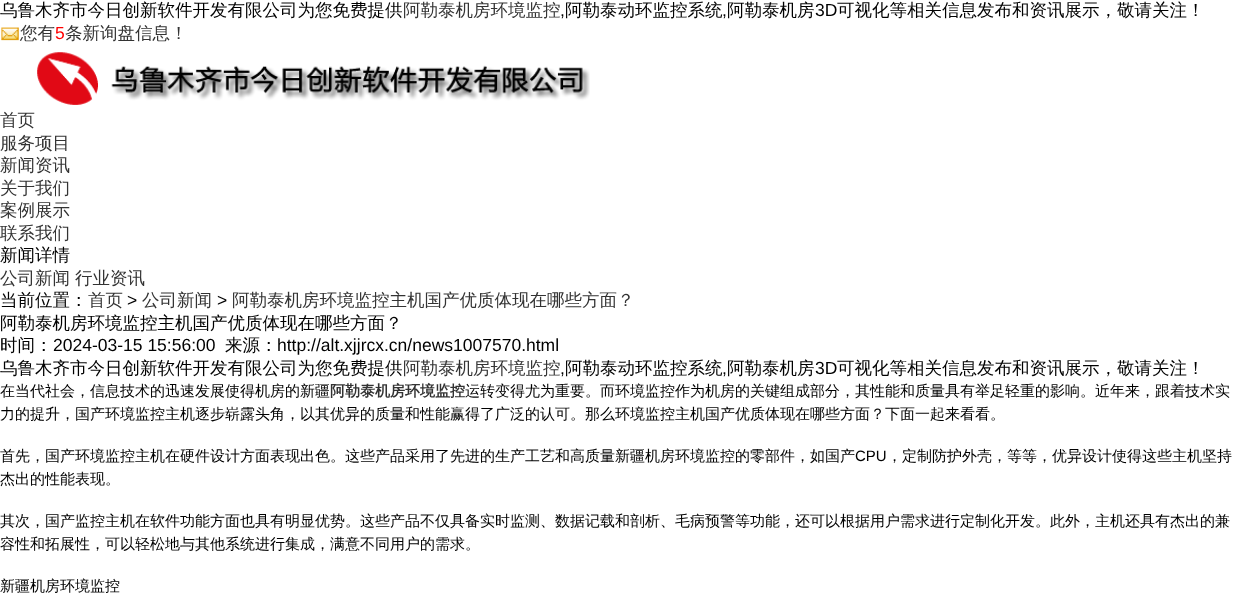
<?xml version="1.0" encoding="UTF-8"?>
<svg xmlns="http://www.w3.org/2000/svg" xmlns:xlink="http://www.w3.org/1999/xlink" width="1236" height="611">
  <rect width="100%" height="100%" fill="#ffffff" />
  <image x="1" y="27" width="18" height="14" xlink:href="image1.png" />
  <image x="37" y="52" width="553" height="53" xlink:href="image2.png" />
  <text x="0" y="16" style="font-family: WenQuanYi Zen Hei; font-size: 17.5px; font-weight: 500; fill: #000000">乌鲁木齐市今日创新软件开发有限公司为您免费提供</text>
  <text x="403" y="16" style="font-family: WenQuanYi Zen Hei; font-size: 17.5px; font-weight: 500; fill: #333333">阿勒泰机房环境监控</text>
  <text x="560" y="16" style="font-family: Liberation Sans; font-size: 17.5px; fill: #000000">,</text>
  <text x="565" y="16" style="font-family: WenQuanYi Zen Hei; font-size: 17.5px; font-weight: 500; fill: #000000">阿勒泰动环监控系统</text>
  <text x="722" y="16" style="font-family: Liberation Sans; font-size: 17.5px; fill: #000000">,</text>
  <text x="727" y="16" style="font-family: WenQuanYi Zen Hei; font-size: 17.5px; font-weight: 500; fill: #000000">阿勒泰机房</text>
  <text x="815" y="16" style="font-family: Liberation Sans; font-size: 17.5px; fill: #000000">3D</text>
  <text x="837" y="16" style="font-family: WenQuanYi Zen Hei; font-size: 17.5px; font-weight: 500; fill: #000000">可视化等相关信息发布和资讯展示，敬请关注！</text>
  <text x="20" y="39" style="font-family: WenQuanYi Zen Hei; font-size: 17.5px; font-weight: 500; fill: #333333">您有</text>
  <text x="55" y="39" style="font-family: Liberation Sans; font-size: 17.5px; fill: #ff0000">5</text>
  <text x="65" y="39" style="font-family: WenQuanYi Zen Hei; font-size: 17.5px; font-weight: 500; fill: #333333">条新询盘信息！</text>
  <text x="0" y="126" style="font-family: WenQuanYi Zen Hei; font-size: 17.5px; font-weight: 500; fill: #333333">首页</text>
  <text x="0" y="149" style="font-family: WenQuanYi Zen Hei; font-size: 17.5px; font-weight: 500; fill: #333333">服务项目</text>
  <text x="0" y="171" style="font-family: WenQuanYi Zen Hei; font-size: 17.5px; font-weight: 500; fill: #333333">新闻资讯</text>
  <text x="0" y="194" style="font-family: WenQuanYi Zen Hei; font-size: 17.5px; font-weight: 500; fill: #333333">关于我们</text>
  <text x="0" y="216" style="font-family: WenQuanYi Zen Hei; font-size: 17.5px; font-weight: 500; fill: #333333">案例展示</text>
  <text x="0" y="239" style="font-family: WenQuanYi Zen Hei; font-size: 17.5px; font-weight: 500; fill: #333333">联系我们</text>
  <text x="0" y="261" style="font-family: WenQuanYi Zen Hei; font-size: 17.5px; font-weight: 500; fill: #000000">新闻详情</text>
  <text x="0" y="284" style="font-family: WenQuanYi Zen Hei; font-size: 17.5px; font-weight: 500; fill: #333333">公司新闻</text>
  <text x="75" y="284" style="font-family: WenQuanYi Zen Hei; font-size: 17.5px; font-weight: 500; fill: #333333">行业资讯</text>
  <text x="0" y="306" style="font-family: WenQuanYi Zen Hei; font-size: 17.5px; font-weight: 500; fill: #000000">当前位置：</text>
  <text x="88" y="306" style="font-family: WenQuanYi Zen Hei; font-size: 17.5px; font-weight: 500; fill: #333333">首页</text>
  <text x="127" y="306" style="font-family: Liberation Sans; font-size: 17.5px; fill: #000000">&gt;</text>
  <text x="142" y="306" style="font-family: WenQuanYi Zen Hei; font-size: 17.5px; font-weight: 500; fill: #333333">公司新闻</text>
  <text x="217" y="306" style="font-family: Liberation Sans; font-size: 17.5px; fill: #000000">&gt;</text>
  <text x="232" y="306" style="font-family: WenQuanYi Zen Hei; font-size: 17.5px; font-weight: 500; fill: #333333">阿勒泰机房环境监控主机国产优质体现在哪些方面？</text>
  <text x="0" y="329" style="font-family: WenQuanYi Zen Hei; font-size: 17.5px; font-weight: 500; fill: #000000">阿勒泰机房环境监控主机国产优质体现在哪些方面？</text>
  <text x="0" y="351" style="font-family: WenQuanYi Zen Hei; font-size: 17.5px; font-weight: 500; fill: #000000">时间：</text>
  <text x="53" y="351" style="font-family: Liberation Sans; font-size: 17.5px; fill: #000000">2024-03-15 15:56:00</text>
  <text x="225" y="351" style="font-family: WenQuanYi Zen Hei; font-size: 17.5px; font-weight: 500; fill: #000000">来源：</text>
  <text x="277" y="351" style="font-family: Liberation Sans; font-size: 17.5px; fill: #000000">http://alt.xjjrcx.cn/news1007570.html</text>
  <text x="0" y="374" style="font-family: WenQuanYi Zen Hei; font-size: 17.5px; font-weight: 500; fill: #000000">乌鲁木齐市今日创新软件开发有限公司为您免费提供</text>
  <text x="403" y="374" style="font-family: WenQuanYi Zen Hei; font-size: 17.5px; font-weight: 500; fill: #333333">阿勒泰机房环境监控</text>
  <text x="560" y="374" style="font-family: Liberation Sans; font-size: 17.5px; fill: #000000">,</text>
  <text x="565" y="374" style="font-family: WenQuanYi Zen Hei; font-size: 17.5px; font-weight: 500; fill: #000000">阿勒泰动环监控系统</text>
  <text x="722" y="374" style="font-family: Liberation Sans; font-size: 17.5px; fill: #000000">,</text>
  <text x="727" y="374" style="font-family: WenQuanYi Zen Hei; font-size: 17.5px; font-weight: 500; fill: #000000">阿勒泰机房</text>
  <text x="815" y="374" style="font-family: Liberation Sans; font-size: 17.5px; fill: #000000">3D</text>
  <text x="837" y="374" style="font-family: WenQuanYi Zen Hei; font-size: 17.5px; font-weight: 500; fill: #000000">可视化等相关信息发布和资讯展示，敬请关注！</text>
  <text x="0" y="396" style="font-family: WenQuanYi Zen Hei; font-size: 15px; font-weight: 500; fill: #000000">在当代社会，信息技术的迅速发展使得机房的新疆</text>
  <text x="330" y="396" style="font-family: WenQuanYi Zen Hei; font-size: 15px; font-weight: bold; fill: #333333">阿勒泰机房环境监控</text>
  <text x="465" y="396" style="font-family: WenQuanYi Zen Hei; font-size: 15px; font-weight: 500; fill: #000000">运转变得尤为重要。而环境监控作为机房的关键组成部分，其性能和质量具有举足轻重的影响。近年来，跟着技术实</text>
  <text x="0" y="419" style="font-family: WenQuanYi Zen Hei; font-size: 15px; font-weight: 500; fill: #000000">力的提升，国产环境监控主机逐步崭露头角，以其优异的质量和性能赢得了广泛的认可。那么环境监控主机国产优质体现在哪些方面？下面一起来看看。</text>
  <text x="0" y="461" style="font-family: WenQuanYi Zen Hei; font-size: 15px; font-weight: 500; fill: #000000">首先，国产环境监控主机在硬件设计方面表现出色。这些产品采用了先进的生产工艺和高质量新疆机房环境监控的零部件，如国产</text>
  <text x="855" y="461" style="font-family: Liberation Sans; font-size: 15px; fill: #000000">CPU</text>
  <text x="887" y="461" style="font-family: WenQuanYi Zen Hei; font-size: 15px; font-weight: 500; fill: #000000">，定制防护外壳，等等，优异设计使得这些主机坚持</text>
  <text x="0" y="484" style="font-family: WenQuanYi Zen Hei; font-size: 15px; font-weight: 500; fill: #000000">杰出的性能表现。</text>
  <text x="0" y="526" style="font-family: WenQuanYi Zen Hei; font-size: 15px; font-weight: 500; fill: #000000">其次，国产监控主机在软件功能方面也具有明显优势。这些产品不仅具备实时监测、数据记载和剖析、毛病预警等功能，还可以根据用户需求进行定制化开发。此外，主机还具有杰出的兼</text>
  <text x="0" y="549" style="font-family: WenQuanYi Zen Hei; font-size: 15px; font-weight: 500; fill: #000000">容性和拓展性，可以轻松地与其他系统进行集成，满意不同用户的需求。</text>
  <text x="0" y="591" style="font-family: WenQuanYi Zen Hei; font-size: 15px; font-weight: 500; fill: #000000">新疆机房环境监控</text>
</svg>
